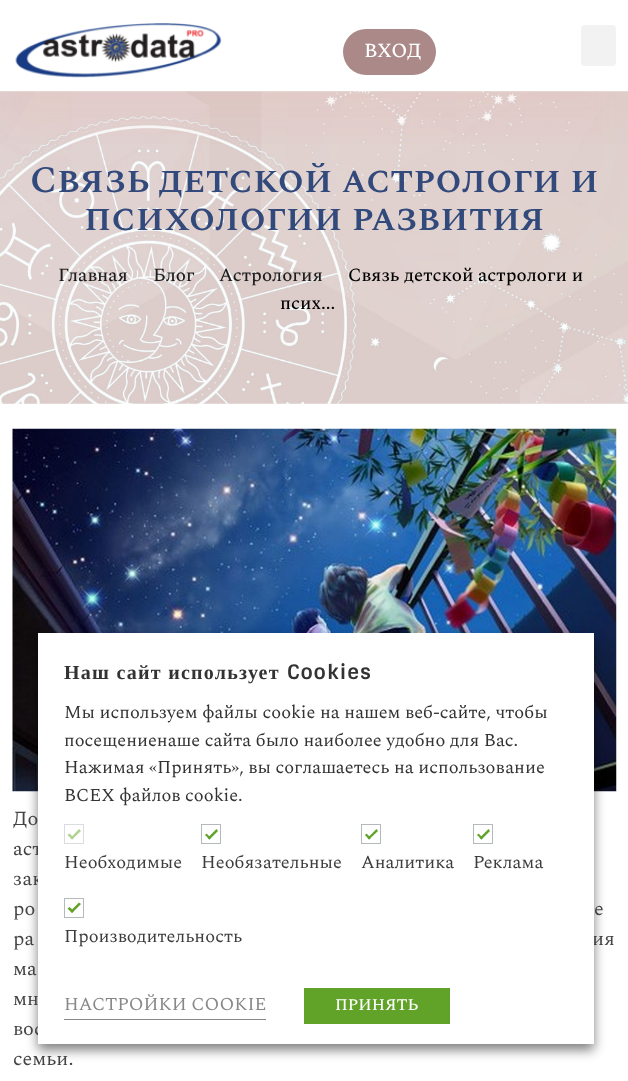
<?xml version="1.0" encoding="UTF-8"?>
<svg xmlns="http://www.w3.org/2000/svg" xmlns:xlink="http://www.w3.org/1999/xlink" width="628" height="1081">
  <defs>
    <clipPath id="clip1"><rect x="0" y="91" width="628" height="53" /></clipPath>
    <clipPath id="clip2"><rect x="13" y="163" width="603" height="75" /></clipPath>
  </defs>
  <rect width="100%" height="100%" fill="#ffffff" />
  <image x="0" y="91" width="628" height="313" xlink:href="image2.png" />
  <g clip-path="url(#clip1)">
    <rect y="38" width="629" height="91" fill="#f38576" fill-opacity="0.08" filter="blur(22.5px)" />
  </g>
  <image x="15" y="23" width="207" height="55" xlink:href="image1.png" />
  <rect x="343" y="29" width="93" height="46" rx="23" fill="#aa8988" />
  <rect x="581" y="25" width="35" height="41" rx="4" fill="#f2f2f2" />
  <image x="12" y="428" width="605" height="364" xlink:href="image3.png" />
  <rect x="38" y="639" width="556" height="411" fill="#000000" fill-opacity="0.5" filter="blur(6px)" />
  <text x="364" y="57" style="font-family: Spectral SC; font-size: 20px; font-weight: 500; fill: #ffffff">ВХОД</text>
  <g clip-path="url(#clip2)">
    <text x="30" y="192" style="font-family: Spectral SC; font-size: 37.5px; font-weight: 600; fill: #32497b">Связь детской астрологи и</text>
  </g>
  <text x="84" y="230" style="font-family: Spectral SC; font-size: 37.5px; font-weight: 600; fill: #32497b">психологии развития</text>
  <text x="58" y="281" style="font-family: Spectral; font-size: 18.75px; font-weight: 500; fill: #1d1d1d">Главная</text>
  <text x="153" y="281" style="font-family: Spectral; font-size: 18.75px; font-weight: 500; fill: #1d1d1d">Блог</text>
  <text x="219" y="281" style="font-family: Spectral; font-size: 18.75px; font-weight: 500; fill: #1d1d1d">Астрология</text>
  <text x="348" y="281" style="font-family: Spectral; font-size: 18.75px; font-weight: 500; fill: #000000">Связь детской астрологи и</text>
  <text x="280" y="309" style="font-family: Spectral; font-size: 18.75px; font-weight: 500; fill: #000000">псих...</text>
  <text x="13" y="825" style="font-family: Spectral; font-size: 20px; fill: #444444">До</text>
  <text x="13" y="855" style="font-family: Spectral; font-size: 20px; fill: #444444">аст</text>
  <text x="13" y="885" style="font-family: Spectral; font-size: 20px; fill: #444444">зак</text>
  <text x="13" y="915" style="font-family: Spectral; font-size: 20px; fill: #444444">ро</text>
  <text x="594" y="915" style="font-family: Spectral; font-size: 20px; fill: #444444">е</text>
  <text x="13" y="945" style="font-family: Spectral; font-size: 20px; fill: #444444">ра</text>
  <text x="592" y="945" style="font-family: Spectral; font-size: 20px; fill: #444444">ия</text>
  <text x="13" y="975" style="font-family: Spectral; font-size: 20px; fill: #444444">ма</text>
  <text x="13" y="1005" style="font-family: Spectral; font-size: 20px; fill: #444444">мн</text>
  <text x="13" y="1035" style="font-family: Spectral; font-size: 20px; fill: #444444">вос</text>
  <text x="13" y="1065" style="font-family: Spectral; font-size: 20px; fill: #444444">семьи.</text>
  <rect x="38" y="633" width="556" height="411" fill="#ffffff" />
  <text x="64" y="679" style="font-family: Liberation Serif; font-size: 20px; font-weight: bold; letter-spacing: 1.25px; fill: #333333">Наш сайт использует</text>
  <text x="287" y="679" style="font-family: Sintony; font-size: 20px; font-weight: bold; letter-spacing: 1.25px; fill: #333333">Cookies</text>
  <text x="64" y="718" style="font-family: Spectral; font-size: 18.3px; fill: #333333">Мы используем файлы cookie на нашем веб-сайте, чтобы</text>
  <text x="64" y="746" style="font-family: Spectral; font-size: 18.3px; fill: #333333">посещениенаше сайта было наиболее удобно для Вас.</text>
  <text x="64" y="773" style="font-family: Spectral; font-size: 18.3px; fill: #333333">Нажимая «Принять», вы соглашаетесь на использование</text>
  <text x="64" y="801" style="font-family: Spectral; font-size: 18.3px; fill: #333333">ВСЕХ файлов cookie.</text>
  <rect x="64.5" y="824.5" width="19" height="19" fill="none" stroke="#dadcdf" />
  <path d="M 79 829 l 2 2 l -9 8.5 l -1.5 -1.5 z" fill="#b0d194" />
  <path d="M 69.5 833.5 l 4.5 4.5 l -2 1.5 l -4.5 -4.5 z" fill="#b0d194" />
  <text x="64" y="868" style="font-family: Spectral; font-size: 18.3px; fill: #3d3d3d">Необходимые</text>
  <rect x="201.5" y="824.5" width="19" height="19" fill="none" stroke="#b4b9be" />
  <path d="M 216.5 829 l 1.5 2 l -8.5 8.5 l -2 -1.5 z" fill="#61a229" />
  <path d="M 206.5 833.5 l 4.5 4.5 l -1.5 1.5 l -4.5 -4.5 z" fill="#61a229" />
  <text x="201" y="868" style="font-family: Spectral; font-size: 18.3px; fill: #3d3d3d">Необязательные</text>
  <rect x="361.5" y="824.5" width="19" height="19" fill="none" stroke="#b4b9be" />
  <path d="M 376.5 829 l 1.5 2 l -9 8.5 l -1.5 -1.5 z" fill="#61a229" />
  <path d="M 366.5 833.5 l 4.5 4.5 l -2 1.5 l -4 -4.5 z" fill="#61a229" />
  <text x="361" y="868" style="font-family: Spectral; font-size: 18.3px; fill: #3d3d3d">Аналитика</text>
  <rect x="473.5" y="824.5" width="19" height="19" fill="none" stroke="#b4b9be" />
  <path d="M 488.5 829 l 1.5 2 l -8.5 8.5 l -2 -1.5 z" fill="#61a229" />
  <path d="M 478.5 833.5 l 4.5 4.5 l -1.5 1.5 l -4.5 -4.5 z" fill="#61a229" />
  <text x="473" y="868" style="font-family: Spectral; font-size: 18.3px; fill: #3d3d3d">Реклама</text>
  <rect x="64.5" y="898.5" width="19" height="19" fill="none" stroke="#b4b9be" />
  <path d="M 79 902.5 l 2 1.5 l -9 9 l -1.5 -2 z" fill="#61a229" />
  <path d="M 69.5 907 l 4.5 4 l -2 2 l -4.5 -4.5 z" fill="#61a229" />
  <text x="64" y="942" style="font-family: Spectral; font-size: 18.3px; fill: #3d3d3d">Производительность</text>
  <text x="64" y="1010" style="font-family: Spectral; font-size: 18.3px; fill: #898888">НАСТРОЙКИ COOKIE</text>
  <rect x="64" y="1019" width="202" height="1" fill="#898888" />
  <rect x="304" y="988" width="146" height="36" fill="#61a229" />
  <text x="335" y="1010" style="font-family: Spectral; font-size: 16.25px; font-weight: 500; fill: #ffffff">ПРИНЯТЬ</text>
</svg>
